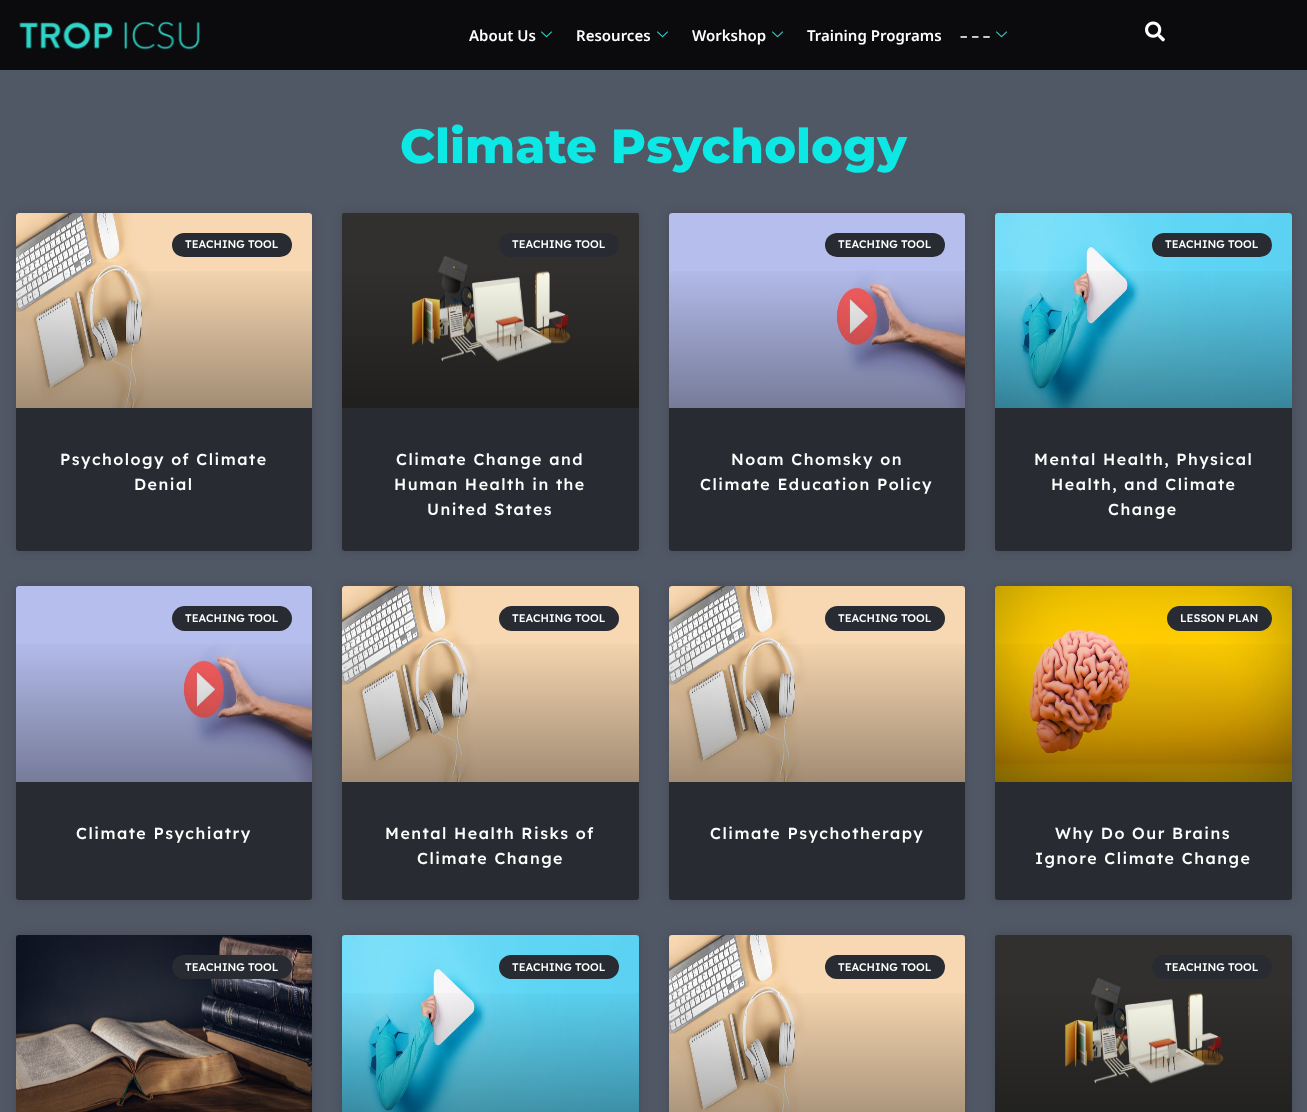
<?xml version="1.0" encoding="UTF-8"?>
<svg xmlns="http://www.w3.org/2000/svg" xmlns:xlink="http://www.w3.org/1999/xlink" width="1307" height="1112">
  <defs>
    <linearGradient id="g1" gradientUnits="userSpaceOnUse" x1="164" y1="408" x2="164" y2="213"><stop offset="0" stop-color="#000000" stop-opacity="0.35" /><stop offset="0.75" stop-color="#000000" stop-opacity="0" /></linearGradient>
    <linearGradient id="g2" gradientUnits="userSpaceOnUse" x1="491" y1="408" x2="491" y2="213"><stop offset="0" stop-color="#000000" stop-opacity="0.35" /><stop offset="0.75" stop-color="#000000" stop-opacity="0" /></linearGradient>
    <linearGradient id="g3" gradientUnits="userSpaceOnUse" x1="817" y1="408" x2="817" y2="213"><stop offset="0" stop-color="#000000" stop-opacity="0.35" /><stop offset="0.75" stop-color="#000000" stop-opacity="0" /></linearGradient>
    <linearGradient id="g4" gradientUnits="userSpaceOnUse" x1="1144" y1="408" x2="1144" y2="213"><stop offset="0" stop-color="#000000" stop-opacity="0.35" /><stop offset="0.75" stop-color="#000000" stop-opacity="0" /></linearGradient>
    <linearGradient id="g5" gradientUnits="userSpaceOnUse" x1="164" y1="782" x2="164" y2="586"><stop offset="0" stop-color="#000000" stop-opacity="0.35" /><stop offset="0.75" stop-color="#000000" stop-opacity="0" /></linearGradient>
    <linearGradient id="g6" gradientUnits="userSpaceOnUse" x1="491" y1="782" x2="491" y2="586"><stop offset="0" stop-color="#000000" stop-opacity="0.35" /><stop offset="0.75" stop-color="#000000" stop-opacity="0" /></linearGradient>
    <linearGradient id="g7" gradientUnits="userSpaceOnUse" x1="817" y1="782" x2="817" y2="586"><stop offset="0" stop-color="#000000" stop-opacity="0.35" /><stop offset="0.75" stop-color="#000000" stop-opacity="0" /></linearGradient>
    <linearGradient id="g8" gradientUnits="userSpaceOnUse" x1="1144" y1="782" x2="1144" y2="586"><stop offset="0" stop-color="#000000" stop-opacity="0.35" /><stop offset="0.75" stop-color="#000000" stop-opacity="0" /></linearGradient>
    <linearGradient id="g9" gradientUnits="userSpaceOnUse" x1="164" y1="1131" x2="164" y2="935"><stop offset="0" stop-color="#000000" stop-opacity="0.35" /><stop offset="0.75" stop-color="#000000" stop-opacity="0" /></linearGradient>
    <linearGradient id="g10" gradientUnits="userSpaceOnUse" x1="491" y1="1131" x2="491" y2="935"><stop offset="0" stop-color="#000000" stop-opacity="0.35" /><stop offset="0.75" stop-color="#000000" stop-opacity="0" /></linearGradient>
    <linearGradient id="g11" gradientUnits="userSpaceOnUse" x1="817" y1="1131" x2="817" y2="935"><stop offset="0" stop-color="#000000" stop-opacity="0.35" /><stop offset="0.75" stop-color="#000000" stop-opacity="0" /></linearGradient>
    <linearGradient id="g12" gradientUnits="userSpaceOnUse" x1="1144" y1="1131" x2="1144" y2="935"><stop offset="0" stop-color="#000000" stop-opacity="0.35" /><stop offset="0.75" stop-color="#000000" stop-opacity="0" /></linearGradient>
  </defs>
  <rect width="100%" height="100%" fill="#515865" />
  <rect width="1307" height="70" fill="#0b0b0d" />
  <image x="19" y="21" width="181" height="29" xlink:href="image1.png" />
  <image x="541" y="31" width="11" height="7" xlink:href="image2.png" />
  <image x="657" y="31" width="11" height="7" xlink:href="image2.png" />
  <image x="772" y="31" width="11" height="7" xlink:href="image2.png" />
  <image x="996" y="31" width="11" height="7" xlink:href="image2.png" />
  <image x="1145" y="21" width="20" height="21" xlink:href="image3.png" />
  <rect x="16" y="213" width="296" height="338" rx="3" fill="#000000" fill-opacity="0.15" filter="blur(5px)" />
  <rect x="16" y="213" width="296" height="338" rx="3" fill="#282c32" />
  <image x="16" y="213" width="296" height="195" xlink:href="image4.png" />
  <rect x="16" y="271" width="296" height="137" fill="url(#g1)" />
  <rect x="172" y="233" width="120" height="24" rx="12" fill="#282c32" />
  <rect x="342" y="213" width="297" height="338" rx="3" fill="#000000" fill-opacity="0.15" filter="blur(5px)" />
  <rect x="342" y="213" width="297" height="338" rx="3" fill="#282c32" />
  <image x="342" y="213" width="297" height="195" xlink:href="image5.png" />
  <rect x="342" y="272" width="297" height="136" fill="url(#g2)" />
  <rect x="499" y="233" width="120" height="24" rx="12" fill="#282c32" />
  <rect x="669" y="213" width="296" height="338" rx="3" fill="#000000" fill-opacity="0.15" filter="blur(5px)" />
  <rect x="669" y="213" width="296" height="338" rx="3" fill="#282c32" />
  <image x="669" y="213" width="296" height="195" xlink:href="image6.png" />
  <rect x="669" y="271" width="296" height="137" fill="url(#g3)" />
  <rect x="825" y="233" width="120" height="24" rx="12" fill="#282c32" />
  <rect x="995" y="213" width="297" height="338" rx="3" fill="#000000" fill-opacity="0.15" filter="blur(5px)" />
  <rect x="995" y="213" width="297" height="338" rx="3" fill="#282c32" />
  <image x="995" y="213" width="297" height="195" xlink:href="image7.png" />
  <rect x="995" y="271" width="297" height="137" fill="url(#g4)" />
  <rect x="1152" y="233" width="120" height="24" rx="12" fill="#282c32" />
  <rect x="16" y="586" width="296" height="314" rx="3" fill="#000000" fill-opacity="0.15" filter="blur(5px)" />
  <rect x="16" y="586" width="296" height="314" rx="3" fill="#282c32" />
  <image x="16" y="586" width="296" height="196" xlink:href="image8.png" />
  <rect x="16" y="644" width="296" height="138" fill="url(#g5)" />
  <rect x="172" y="606" width="120" height="25" rx="12.5" fill="#282c32" />
  <rect x="342" y="586" width="297" height="314" rx="3" fill="#000000" fill-opacity="0.15" filter="blur(5px)" />
  <rect x="342" y="586" width="297" height="314" rx="3" fill="#282c32" />
  <image x="342" y="586" width="297" height="196" xlink:href="image9.png" />
  <rect x="342" y="644" width="297" height="138" fill="url(#g6)" />
  <rect x="499" y="606" width="120" height="25" rx="12.5" fill="#282c32" />
  <rect x="669" y="586" width="296" height="314" rx="3" fill="#000000" fill-opacity="0.15" filter="blur(5px)" />
  <rect x="669" y="586" width="296" height="314" rx="3" fill="#282c32" />
  <image x="669" y="586" width="296" height="196" xlink:href="image10.png" />
  <rect x="669" y="644" width="296" height="138" fill="url(#g7)" />
  <rect x="825" y="606" width="120" height="25" rx="12.5" fill="#282c32" />
  <rect x="995" y="586" width="297" height="314" rx="3" fill="#000000" fill-opacity="0.15" filter="blur(5px)" />
  <rect x="995" y="586" width="297" height="314" rx="3" fill="#282c32" />
  <image x="995" y="586" width="297" height="196" xlink:href="image11.png" />
  <rect x="995" y="644" width="297" height="138" fill="url(#g8)" />
  <rect x="1167" y="606" width="105" height="25" rx="12.5" fill="#282c32" />
  <rect x="16" y="935" width="296" height="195" rx="3" fill="#000000" fill-opacity="0.15" filter="blur(5px)" />
  <image x="16" y="935" width="296" height="177" xlink:href="image12.png" />
  <rect x="16" y="993" width="296" height="119" fill="url(#g9)" />
  <rect x="172" y="955" width="120" height="24" rx="12" fill="#282c32" />
  <rect x="342" y="935" width="297" height="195" rx="3" fill="#000000" fill-opacity="0.15" filter="blur(5px)" />
  <image x="342" y="935" width="297" height="177" xlink:href="image13.png" />
  <rect x="342" y="993" width="297" height="119" fill="url(#g10)" />
  <rect x="499" y="955" width="120" height="24" rx="12" fill="#282c32" />
  <rect x="669" y="935" width="296" height="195" rx="3" fill="#000000" fill-opacity="0.15" filter="blur(5px)" />
  <image x="669" y="935" width="296" height="177" xlink:href="image14.png" />
  <rect x="669" y="993" width="296" height="119" fill="url(#g11)" />
  <rect x="825" y="955" width="120" height="24" rx="12" fill="#282c32" />
  <rect x="995" y="935" width="297" height="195" rx="3" fill="#000000" fill-opacity="0.15" filter="blur(5px)" />
  <image x="995" y="935" width="297" height="177" xlink:href="image15.png" />
  <rect x="995" y="994" width="297" height="118" fill="url(#g12)" />
  <rect x="1152" y="955" width="120" height="24" rx="12" fill="#282c32" />
  <text x="469" y="41" style="font-family: Noto Sans; font-size: 15px; font-weight: 600; fill: #ffffff">About Us</text>
  <text x="576" y="41" style="font-family: Noto Sans; font-size: 15px; font-weight: 600; fill: #ffffff">Resources</text>
  <text x="692" y="41" style="font-family: Noto Sans; font-size: 15px; font-weight: 600; fill: #ffffff">Workshop</text>
  <text x="807" y="41" style="font-family: Noto Sans; font-size: 15px; font-weight: 600; fill: #ffffff">Training Programs</text>
  <text x="960" y="41" style="font-family: Noto Sans; font-size: 15px; font-weight: 600; fill: #ffffff">– – –</text>
  <text x="400" y="163" style="font-family: Montserrat; font-size: 48px; font-weight: 800; fill: #0de8e4">Climate Psychology</text>
  <text x="185" y="248" style="font-family: Lexend; font-size: 11px; font-weight: 500; fill: #ffffff">TEACHING TOOL</text>
  <text x="60" y="465" style="font-family: Lexend; font-size: 16px; font-weight: 500; letter-spacing: 1.5px; fill: #ffffff">Psychology of Climate</text>
  <text x="134" y="490" style="font-family: Lexend; font-size: 16px; font-weight: 500; letter-spacing: 1.5px; fill: #ffffff">Denial</text>
  <text x="512" y="248" style="font-family: Lexend; font-size: 11px; font-weight: 500; fill: #ffffff">TEACHING TOOL</text>
  <text x="396" y="465" style="font-family: Lexend; font-size: 16px; font-weight: 500; letter-spacing: 1.5px; fill: #ffffff">Climate Change and</text>
  <text x="394" y="490" style="font-family: Lexend; font-size: 16px; font-weight: 500; letter-spacing: 1.5px; fill: #ffffff">Human Health in the</text>
  <text x="427" y="515" style="font-family: Lexend; font-size: 16px; font-weight: 500; letter-spacing: 1.5px; fill: #ffffff">United States</text>
  <text x="838" y="248" style="font-family: Lexend; font-size: 11px; font-weight: 500; fill: #ffffff">TEACHING TOOL</text>
  <text x="731" y="465" style="font-family: Lexend; font-size: 16px; font-weight: 500; letter-spacing: 1.5px; fill: #ffffff">Noam Chomsky on</text>
  <text x="700" y="490" style="font-family: Lexend; font-size: 16px; font-weight: 500; letter-spacing: 1.5px; fill: #ffffff">Climate Education Policy</text>
  <text x="1165" y="248" style="font-family: Lexend; font-size: 11px; font-weight: 500; fill: #ffffff">TEACHING TOOL</text>
  <text x="1034" y="465" style="font-family: Lexend; font-size: 16px; font-weight: 500; letter-spacing: 1.5px; fill: #ffffff">Mental Health, Physical</text>
  <text x="1051" y="490" style="font-family: Lexend; font-size: 16px; font-weight: 500; letter-spacing: 1.5px; fill: #ffffff">Health, and Climate</text>
  <text x="1108" y="515" style="font-family: Lexend; font-size: 16px; font-weight: 500; letter-spacing: 1.5px; fill: #ffffff">Change</text>
  <text x="185" y="622" style="font-family: Lexend; font-size: 11px; font-weight: 500; fill: #ffffff">TEACHING TOOL</text>
  <text x="76" y="839" style="font-family: Lexend; font-size: 16px; font-weight: 500; letter-spacing: 1.5px; fill: #ffffff">Climate Psychiatry</text>
  <text x="512" y="622" style="font-family: Lexend; font-size: 11px; font-weight: 500; fill: #ffffff">TEACHING TOOL</text>
  <text x="385" y="839" style="font-family: Lexend; font-size: 16px; font-weight: 500; letter-spacing: 1.5px; fill: #ffffff">Mental Health Risks of</text>
  <text x="417" y="864" style="font-family: Lexend; font-size: 16px; font-weight: 500; letter-spacing: 1.5px; fill: #ffffff">Climate Change</text>
  <text x="838" y="622" style="font-family: Lexend; font-size: 11px; font-weight: 500; fill: #ffffff">TEACHING TOOL</text>
  <text x="710" y="839" style="font-family: Lexend; font-size: 16px; font-weight: 500; letter-spacing: 1.5px; fill: #ffffff">Climate Psychotherapy</text>
  <text x="1180" y="622" style="font-family: Lexend; font-size: 11px; font-weight: 500; fill: #ffffff">LESSON PLAN</text>
  <text x="1055" y="839" style="font-family: Lexend; font-size: 16px; font-weight: 500; letter-spacing: 1.5px; fill: #ffffff">Why Do Our Brains</text>
  <text x="1035" y="864" style="font-family: Lexend; font-size: 16px; font-weight: 500; letter-spacing: 1.5px; fill: #ffffff">Ignore Climate Change</text>
  <text x="185" y="971" style="font-family: Lexend; font-size: 11px; font-weight: 500; fill: #ffffff">TEACHING TOOL</text>
  <text x="512" y="971" style="font-family: Lexend; font-size: 11px; font-weight: 500; fill: #ffffff">TEACHING TOOL</text>
  <text x="838" y="971" style="font-family: Lexend; font-size: 11px; font-weight: 500; fill: #ffffff">TEACHING TOOL</text>
  <text x="1165" y="971" style="font-family: Lexend; font-size: 11px; font-weight: 500; fill: #ffffff">TEACHING TOOL</text>
</svg>
